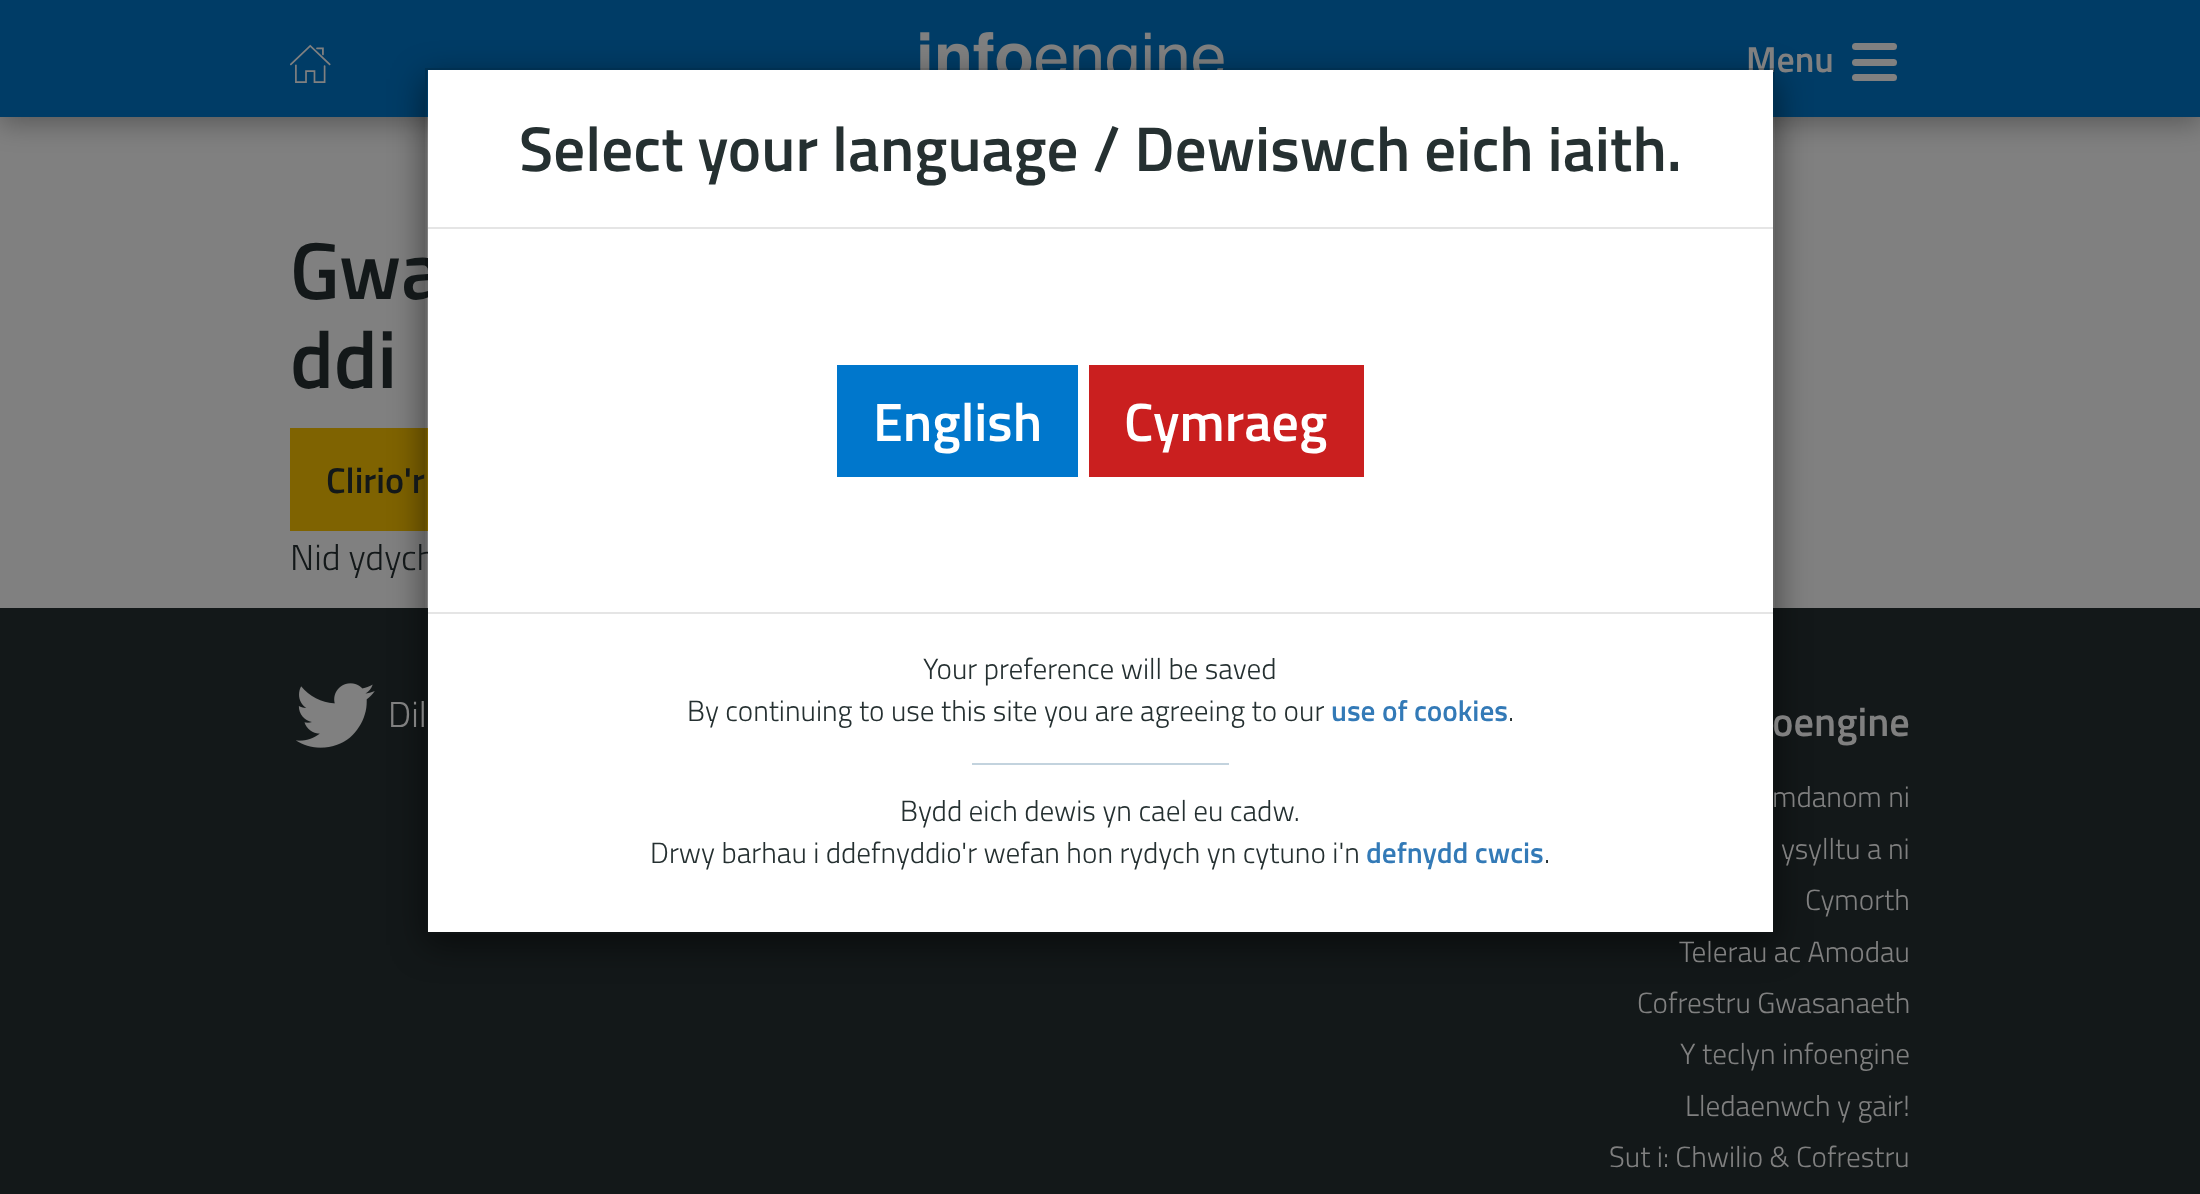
<?xml version="1.0" encoding="UTF-8"?>
<svg xmlns="http://www.w3.org/2000/svg" xmlns:xlink="http://www.w3.org/1999/xlink" width="2200" height="1194">
  <defs>
    <clipPath id="clip1"><path d="M 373 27 h 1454 v 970 h -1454 z m 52 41 h 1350 v 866 h -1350 z" clip-rule="evenodd" /></clipPath>
  </defs>
  <rect width="100%" height="100%" fill="#808080" />
  <rect y="7" width="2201" height="117" fill="#000000" fill-opacity="0.3" filter="blur(13.5px)" />
  <rect width="2200" height="117" fill="#003c66" />
  <image x="920" y="32" width="304" height="38" xlink:href="image1.png" />
  <rect x="1852" y="43" width="45" height="7" rx="3.5" fill="#808080" />
  <rect x="1852" y="59" width="45" height="7" rx="3.5" fill="#808080" />
  <rect x="1852" y="74" width="45" height="7" rx="3.5" fill="#808080" />
  <rect x="290" y="428" width="138" height="103" fill="#7f6301" />
  <rect y="608" width="2200" height="586" fill="#131819" />
  <image x="296" y="683" width="79" height="65" xlink:href="image2.png" />
  <g clip-path="url(#clip1)">
    <rect x="425" y="79" width="1350" height="866" fill="#000000" fill-opacity="0.5" filter="blur(17px)" />
  </g>
  <text x="290" y="83" style="font-family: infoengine; font-size: 40.5px; fill: #808080">6</text>
  <text x="1746" y="72" style="font-family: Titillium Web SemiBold; font-size: 36px; font-weight: 600; fill: #808080">Menu</text>
  <text x="290" y="299" style="font-family: Titillium Web SemiBold; font-size: 81px; font-weight: 600; fill: #131819">Gwa</text>
  <text x="290" y="388" style="font-family: Titillium Web SemiBold; font-size: 81px; font-weight: 600; fill: #131819">ddi</text>
  <text x="326" y="493" style="font-family: Titillium Web SemiBold; font-size: 36px; font-weight: 600; fill: #131819">Clirio'r</text>
  <text x="290" y="570" style="font-family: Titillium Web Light; font-size: 36px; font-weight: 300; fill: #131819">Nid ydych</text>
  <rect x="428" y="70" width="1345" height="862" fill="#ffffff" />
  <text x="388" y="727" style="font-family: Titillium Web Light; font-size: 36px; font-weight: 300; fill: #808080">Dil</text>
  <text x="1772" y="736" style="font-family: Titillium Web SemiBold; font-size: 40.5px; font-weight: 600; fill: #808080">oengine</text>
  <text x="1772" y="807" style="font-family: Titillium Web Light; font-size: 29.25px; font-weight: 300; fill: #808080">mdanom ni</text>
  <rect x="426" y="69" width="1348" height="864" fill="none" stroke="#000000" stroke-opacity="0.2" stroke-width="2" />
  <rect x="972" y="763" width="257" height="2" fill="#c3d3de" />
  <text x="1508" y="721" style="font-family: Titillium Web Light; font-size: 29.25px; font-weight: 300; fill: #253031">.</text>
  <text x="1331" y="721" style="font-family: Titillium Web SemiBold; font-size: 29.25px; font-weight: 600; fill: #337ab7">use of cookies</text>
  <text x="687" y="721" style="font-family: Titillium Web Light; font-size: 29.25px; font-weight: 300; fill: #253031">By continuing to use this site you are agreeing to our</text>
  <text x="923" y="679" style="font-family: Titillium Web Light; font-size: 29.25px; font-weight: 300; fill: #253031">Your preference will be saved</text>
  <rect x="1089" y="365" width="275" height="112" fill="#ca1f1f" />
  <text x="1124" y="441" style="font-family: Titillium Web SemiBold; font-size: 54px; font-weight: 600; fill: #ffffff">Cymraeg</text>
  <rect x="837" y="365" width="241" height="112" fill="#0077cc" />
  <text x="873" y="441" style="font-family: Titillium Web SemiBold; font-size: 54px; font-weight: 600; fill: #ffffff">English</text>
  <text x="1544" y="863" style="font-family: Titillium Web Light; font-size: 29.25px; font-weight: 300; fill: #253031">.</text>
  <text x="1366" y="863" style="font-family: Titillium Web SemiBold; font-size: 29.25px; font-weight: 600; fill: #337ab7">defnydd cwcis</text>
  <text x="650" y="863" style="font-family: Titillium Web Light; font-size: 29.25px; font-weight: 300; fill: #253031">Drwy barhau i ddefnyddio'r wefan hon rydych yn cytuno i'n</text>
  <text x="900" y="821" style="font-family: Titillium Web Light; font-size: 29.25px; font-weight: 300; fill: #253031">Bydd eich dewis yn cael eu cadw.</text>
  <text x="519" y="171" style="font-family: Titillium Web SemiBold; font-size: 63px; font-weight: 600; fill: #253031">Select your language / Dewiswch eich iaith.</text>
  <rect x="428" y="612" width="1345" height="2" fill="#e5e5e5" />
  <rect x="428" y="227" width="1345" height="2" fill="#e5e5e5" />
  <text x="1781" y="859" style="font-family: Titillium Web Light; font-size: 29.25px; font-weight: 300; fill: #808080">ysylltu a ni</text>
  <text x="1805" y="910" style="font-family: Titillium Web Light; font-size: 29.25px; font-weight: 300; fill: #808080">Cymorth</text>
  <text x="1679" y="962" style="font-family: Titillium Web Light; font-size: 29.25px; font-weight: 300; fill: #808080">Telerau ac Amodau</text>
  <text x="1637" y="1013" style="font-family: Titillium Web Light; font-size: 29.25px; font-weight: 300; fill: #808080">Cofrestru Gwasanaeth</text>
  <text x="1680" y="1064" style="font-family: Titillium Web Light; font-size: 29.25px; font-weight: 300; fill: #808080">Y teclyn infoengine</text>
  <text x="1685" y="1116" style="font-family: Titillium Web Light; font-size: 29.25px; font-weight: 300; fill: #808080">Lledaenwch y gair!</text>
  <text x="1609" y="1167" style="font-family: Titillium Web Light; font-size: 29.25px; font-weight: 300; fill: #808080">Sut i: Chwilio &amp; Cofrestru</text>
</svg>
